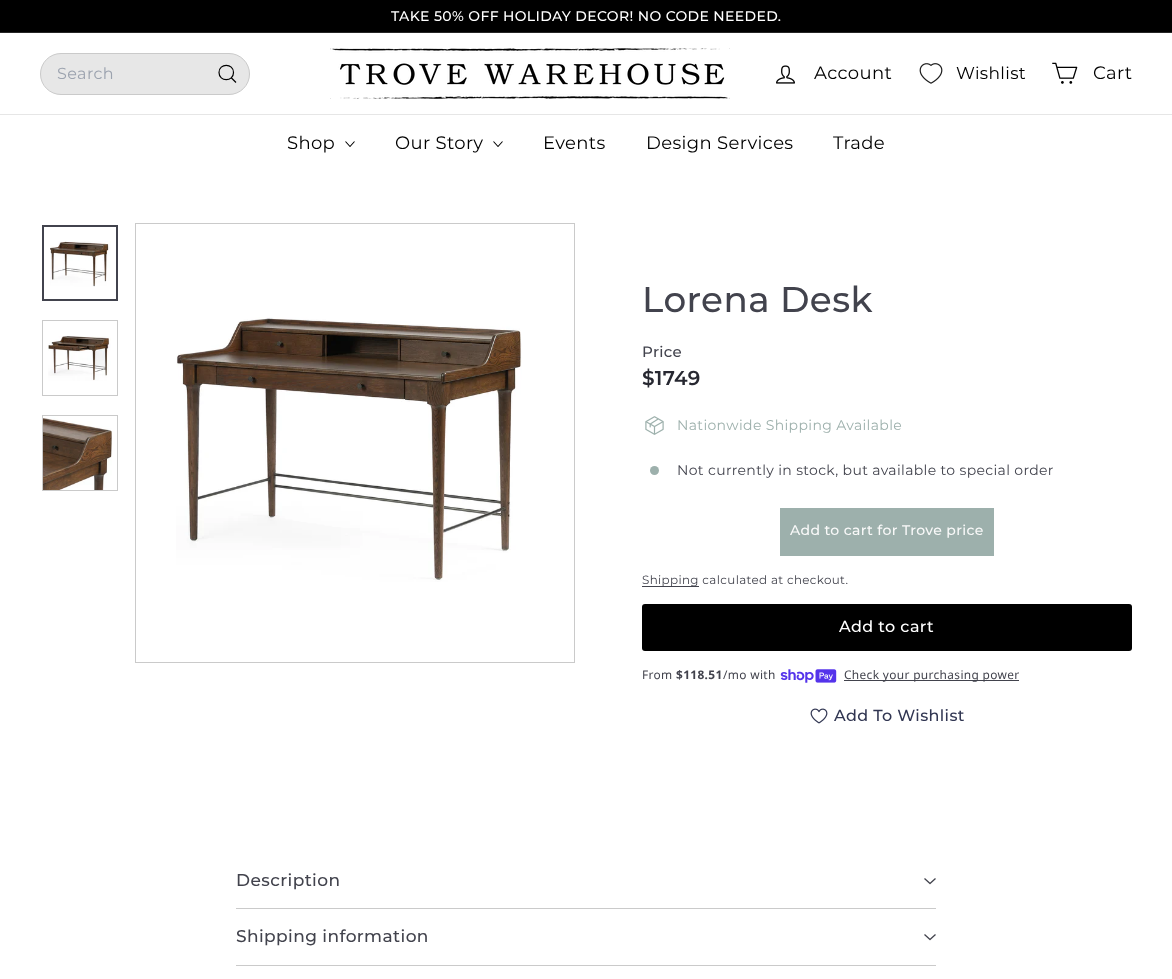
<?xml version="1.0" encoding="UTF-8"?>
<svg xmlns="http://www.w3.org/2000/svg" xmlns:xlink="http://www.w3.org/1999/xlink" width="1172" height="979">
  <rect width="100%" height="100%" fill="#ffffff" />
  <rect width="1172" height="32" fill="#000000" />
  <rect y="32" width="1172" height="1" fill="#262626" />
  <rect x="40.5" y="53.5" width="209" height="41" rx="20.5" fill="#e7e7e7" stroke="#cacaca" />
  <path d="M 233.5 72.5 c 0 9.5 -14.5 9.5 -14.5 0 c 0 -9.5 14.5 -9.5 14.5 0 m 2.5 10 l -4.5 -4.5" fill="none" stroke="#000000" stroke-width="1.2" stroke-linejoin="round" />
  <image x="330" y="48" width="400" height="51" xlink:href="image1.png" />
  <image x="776" y="65" width="19" height="19" xlink:href="image2.png" />
  <image x="919" y="63" width="24" height="21" xlink:href="image3.png" />
  <image x="1052" y="62" width="26" height="22" xlink:href="image4.png" />
  <rect y="114" width="1172" height="1" fill="#e6e6e6" />
  <path d="M 345.5 141.5 l 4.5 5 l 4.5 -5" fill="none" stroke="#000000" stroke-width="1.1" stroke-linejoin="round" />
  <path d="M 493.5 141.5 l 4.5 5 l 4.5 -5" fill="none" stroke="#000000" stroke-width="1.1" stroke-linejoin="round" />
  <image x="50" y="241" width="61" height="46" xlink:href="image5.png" />
  <rect x="43" y="226" width="74" height="74" fill="none" stroke="#42434d" stroke-width="2" />
  <rect x="42.5" y="320.5" width="75" height="75" fill="none" stroke="#cacaca" />
  <image x="48" y="336" width="63" height="45" xlink:href="image6.png" />
  <rect x="42.5" y="415.5" width="75" height="75" fill="none" stroke="#cacaca" />
  <image x="43" y="416" width="69" height="74" xlink:href="image7.png" />
  <rect x="135.5" y="223.5" width="439" height="439" fill="none" stroke="#cacaca" />
  <image x="176" y="317" width="346" height="265" xlink:href="image8.png" />
  <image x="645" y="416" width="19" height="19" xlink:href="image9.png" />
  <circle cx="654.5" cy="470.5" r="4.5" fill="#9db0ac" />
  <rect x="780" y="508" width="214" height="48" fill="#9db0ac" />
  <rect x="642" y="586" width="57" height="1" fill="#42434d" />
  <rect x="642" y="604" width="490" height="47" rx="3" fill="#000000" />
  <image x="780" y="669" width="57" height="14" xlink:href="image10.png" />
  <rect x="844" y="680" width="175" height="1" fill="#42434d" />
  <image x="810" y="708" width="18" height="16" xlink:href="image11.png" />
  <rect x="236" y="908" width="700" height="1" fill="#cacaca" />
  <path d="M 924.5 878.5 l 5.5 5 l 5.5 -5" fill="none" stroke="#42434d" stroke-width="1.3" stroke-linejoin="round" />
  <rect x="236" y="965" width="700" height="1" fill="#cacaca" />
  <path d="M 924.5 934.5 l 5.5 5 l 5.5 -5" fill="none" stroke="#42434d" stroke-width="1.3" stroke-linejoin="round" />
  <text x="391" y="21" style="font-family: Montserrat; font-size: 14px; font-weight: 500; letter-spacing: 0.35px; fill: #ffffff">TAKE 50% OFF HOLIDAY DECOR! NO CODE NEEDED.</text>
  <text x="57" y="79" style="font-family: Montserrat; font-size: 16px; letter-spacing: 0.4px; fill: #9ca3af">Search</text>
  <text x="814" y="79" style="font-family: Montserrat; font-size: 18px; letter-spacing: 0.35px; fill: #000000">Account</text>
  <text x="956" y="79" style="font-family: Montserrat; font-size: 17px; letter-spacing: 0.35px; fill: #000000">Wishlist</text>
  <text x="1093" y="79" style="font-family: Montserrat; font-size: 18px; letter-spacing: 0.35px; fill: #000000">Cart</text>
  <text x="287" y="149" style="font-family: Montserrat; font-size: 18px; letter-spacing: 0.35px; fill: #000000">Shop</text>
  <text x="395" y="149" style="font-family: Montserrat; font-size: 18px; letter-spacing: 0.35px; fill: #000000">Our Story</text>
  <text x="543" y="149" style="font-family: Montserrat; font-size: 18px; letter-spacing: 0.35px; fill: #000000">Events</text>
  <text x="646" y="149" style="font-family: Montserrat; font-size: 18px; letter-spacing: 0.35px; fill: #000000">Design Services</text>
  <text x="833" y="149" style="font-family: Montserrat; font-size: 18px; letter-spacing: 0.35px; fill: #000000">Trade</text>
  <text x="642" y="312" style="font-family: Montserrat; font-size: 35.75px; font-weight: 500; letter-spacing: 0.4px; fill: #42434d">Lorena Desk</text>
  <text x="642" y="357" style="font-family: Montserrat; font-size: 15px; font-weight: 500; letter-spacing: 0.35px; fill: #42434d">Price</text>
  <text x="642" y="385" style="font-family: Montserrat; font-size: 20px; font-weight: 600; letter-spacing: 0.35px; fill: #272831">$1749</text>
  <text x="677" y="430" style="font-family: Montserrat; font-size: 14px; letter-spacing: 0.35px; fill: #9db0ac">Nationwide Shipping Available</text>
  <text x="677" y="475" style="font-family: Montserrat; font-size: 14px; letter-spacing: 0.35px; fill: #42434d">Not currently in stock, but available to special order</text>
  <text x="790" y="535" style="font-family: Montserrat; font-size: 14px; font-weight: 500; letter-spacing: 0.35px; fill: #f9f9f9">Add to cart for Trove price</text>
  <text x="642" y="584" style="font-family: Montserrat; font-size: 11.9px; letter-spacing: 0.35px; fill: #42434d">Shipping calculated at checkout.</text>
  <text x="839" y="632" style="font-family: Montserrat; font-size: 16px; font-weight: 500; letter-spacing: 0.4px; fill: #ffffff">Add to cart</text>
  <text x="642" y="679" style="font-family: Noto Sans; font-size: 11.9px; letter-spacing: 0.35px; fill: #42434d">From</text>
  <text x="676" y="679" style="font-family: Noto Sans; font-size: 11.9px; font-weight: bold; letter-spacing: 0.35px; fill: #42434d">$118.51</text>
  <text x="723" y="679" style="font-family: Noto Sans; font-size: 11.9px; letter-spacing: 0.35px; fill: #42434d">/mo with</text>
  <text x="844" y="679" style="font-family: Noto Sans; font-size: 11.9px; letter-spacing: 0.35px; fill: #42434d">Check your purchasing power</text>
  <text x="834" y="721" style="font-family: Montserrat; font-size: 16px; font-weight: 500; letter-spacing: 0.35px; fill: #313652">Add To Wishlist</text>
  <text x="236" y="886" style="font-family: Montserrat; font-size: 17px; font-weight: 500; letter-spacing: 0.4px; fill: #42434d">Description</text>
  <text x="236" y="942" style="font-family: Montserrat; font-size: 17px; font-weight: 500; letter-spacing: 0.4px; fill: #42434d">Shipping information</text>
</svg>
